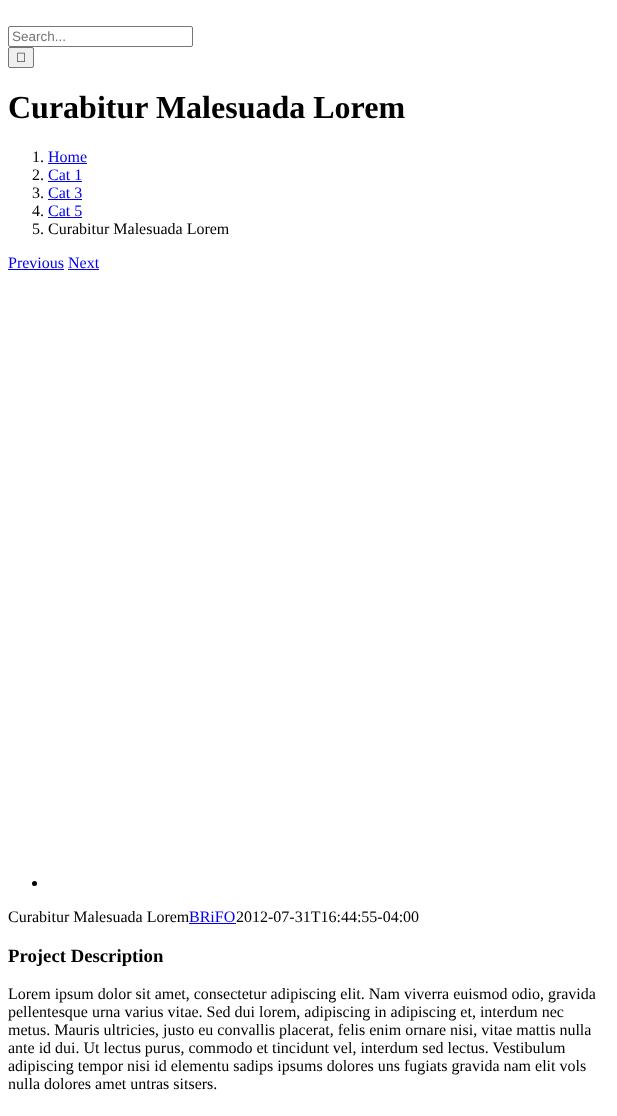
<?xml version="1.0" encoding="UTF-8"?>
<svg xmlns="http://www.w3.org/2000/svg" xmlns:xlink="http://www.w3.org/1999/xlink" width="617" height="1116">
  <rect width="100%" height="100%" fill="#ffffff" />
  <rect x="8.5" y="26.5" width="184" height="20" rx="1.5" fill="none" stroke="#767676" />
  <rect x="8.5" y="47.5" width="25" height="20" rx="1.5" fill="#efefef" stroke="#767676" />
  <image x="17" y="52" width="8" height="10" xlink:href="image1.png" />
  <rect x="48" y="163" width="39" height="1" fill="#0000ee" />
  <rect x="48" y="181" width="34" height="1" fill="#0000ee" />
  <rect x="48" y="199" width="34" height="1" fill="#0000ee" />
  <rect x="48" y="217" width="34" height="1" fill="#0000ee" />
  <rect x="8" y="269" width="56" height="1" fill="#0000ee" />
  <rect x="68" y="269" width="31" height="1" fill="#0000ee" />
  <circle cx="34.5" cy="883.5" r="2.5" fill="#000000" />
  <rect x="189" y="923" width="47" height="1" fill="#0000ee" />
  <text x="12" y="41" style="font-family: Liberation Sans; font-size: 13.5px; fill: #757575">Search...</text>
  <text x="8" y="118" style="font-family: Liberation Serif; font-size: 32px; font-weight: bold; fill: #000000">Curabitur Malesuada Lorem</text>
  <text x="32" y="162" style="font-family: Liberation Serif; font-size: 16px; fill: #000000">1.</text>
  <text x="48" y="162" style="font-family: Liberation Serif; font-size: 16px; fill: #0000ee">Home</text>
  <text x="32" y="180" style="font-family: Liberation Serif; font-size: 16px; fill: #000000">2.</text>
  <text x="48" y="180" style="font-family: Liberation Serif; font-size: 16px; fill: #0000ee">Cat 1</text>
  <text x="32" y="198" style="font-family: Liberation Serif; font-size: 16px; fill: #000000">3.</text>
  <text x="48" y="198" style="font-family: Liberation Serif; font-size: 16px; fill: #0000ee">Cat 3</text>
  <text x="32" y="216" style="font-family: Liberation Serif; font-size: 16px; fill: #000000">4.</text>
  <text x="48" y="216" style="font-family: Liberation Serif; font-size: 16px; fill: #0000ee">Cat 5</text>
  <text x="32" y="234" style="font-family: Liberation Serif; font-size: 16px; fill: #000000">5. Curabitur Malesuada Lorem</text>
  <text x="8" y="268" style="font-family: Liberation Serif; font-size: 16px; fill: #0000ee">Previous Next</text>
  <text x="8" y="922" style="font-family: Liberation Serif; font-size: 16px; fill: #000000">Curabitur Malesuada Lorem</text>
  <text x="189" y="922" style="font-family: Liberation Serif; font-size: 16px; fill: #0000ee">BRiFO</text>
  <text x="236" y="922" style="font-family: Liberation Serif; font-size: 16px; fill: #000000">2012-07-31T16:44:55-04:00</text>
  <text x="8" y="962" style="font-family: Liberation Serif; font-size: 18.75px; font-weight: bold; fill: #000000">Project Description</text>
  <text x="8" y="999" style="font-family: Liberation Serif; font-size: 16px; fill: #000000">Lorem ipsum dolor sit amet, consectetur adipiscing elit. Nam viverra euismod odio, gravida</text>
  <text x="8" y="1017" style="font-family: Liberation Serif; font-size: 16px; fill: #000000">pellentesque urna varius vitae. Sed dui lorem, adipiscing in adipiscing et, interdum nec</text>
  <text x="8" y="1035" style="font-family: Liberation Serif; font-size: 16px; fill: #000000">metus. Mauris ultricies, justo eu convallis placerat, felis enim ornare nisi, vitae mattis nulla</text>
  <text x="8" y="1053" style="font-family: Liberation Serif; font-size: 16px; fill: #000000">ante id dui. Ut lectus purus, commodo et tincidunt vel, interdum sed lectus. Vestibulum</text>
  <text x="8" y="1071" style="font-family: Liberation Serif; font-size: 16px; fill: #000000">adipiscing tempor nisi id elementu sadips ipsums dolores uns fugiats gravida nam elit vols</text>
  <text x="8" y="1089" style="font-family: Liberation Serif; font-size: 16px; fill: #000000">nulla dolores amet untras sitsers.</text>
</svg>
